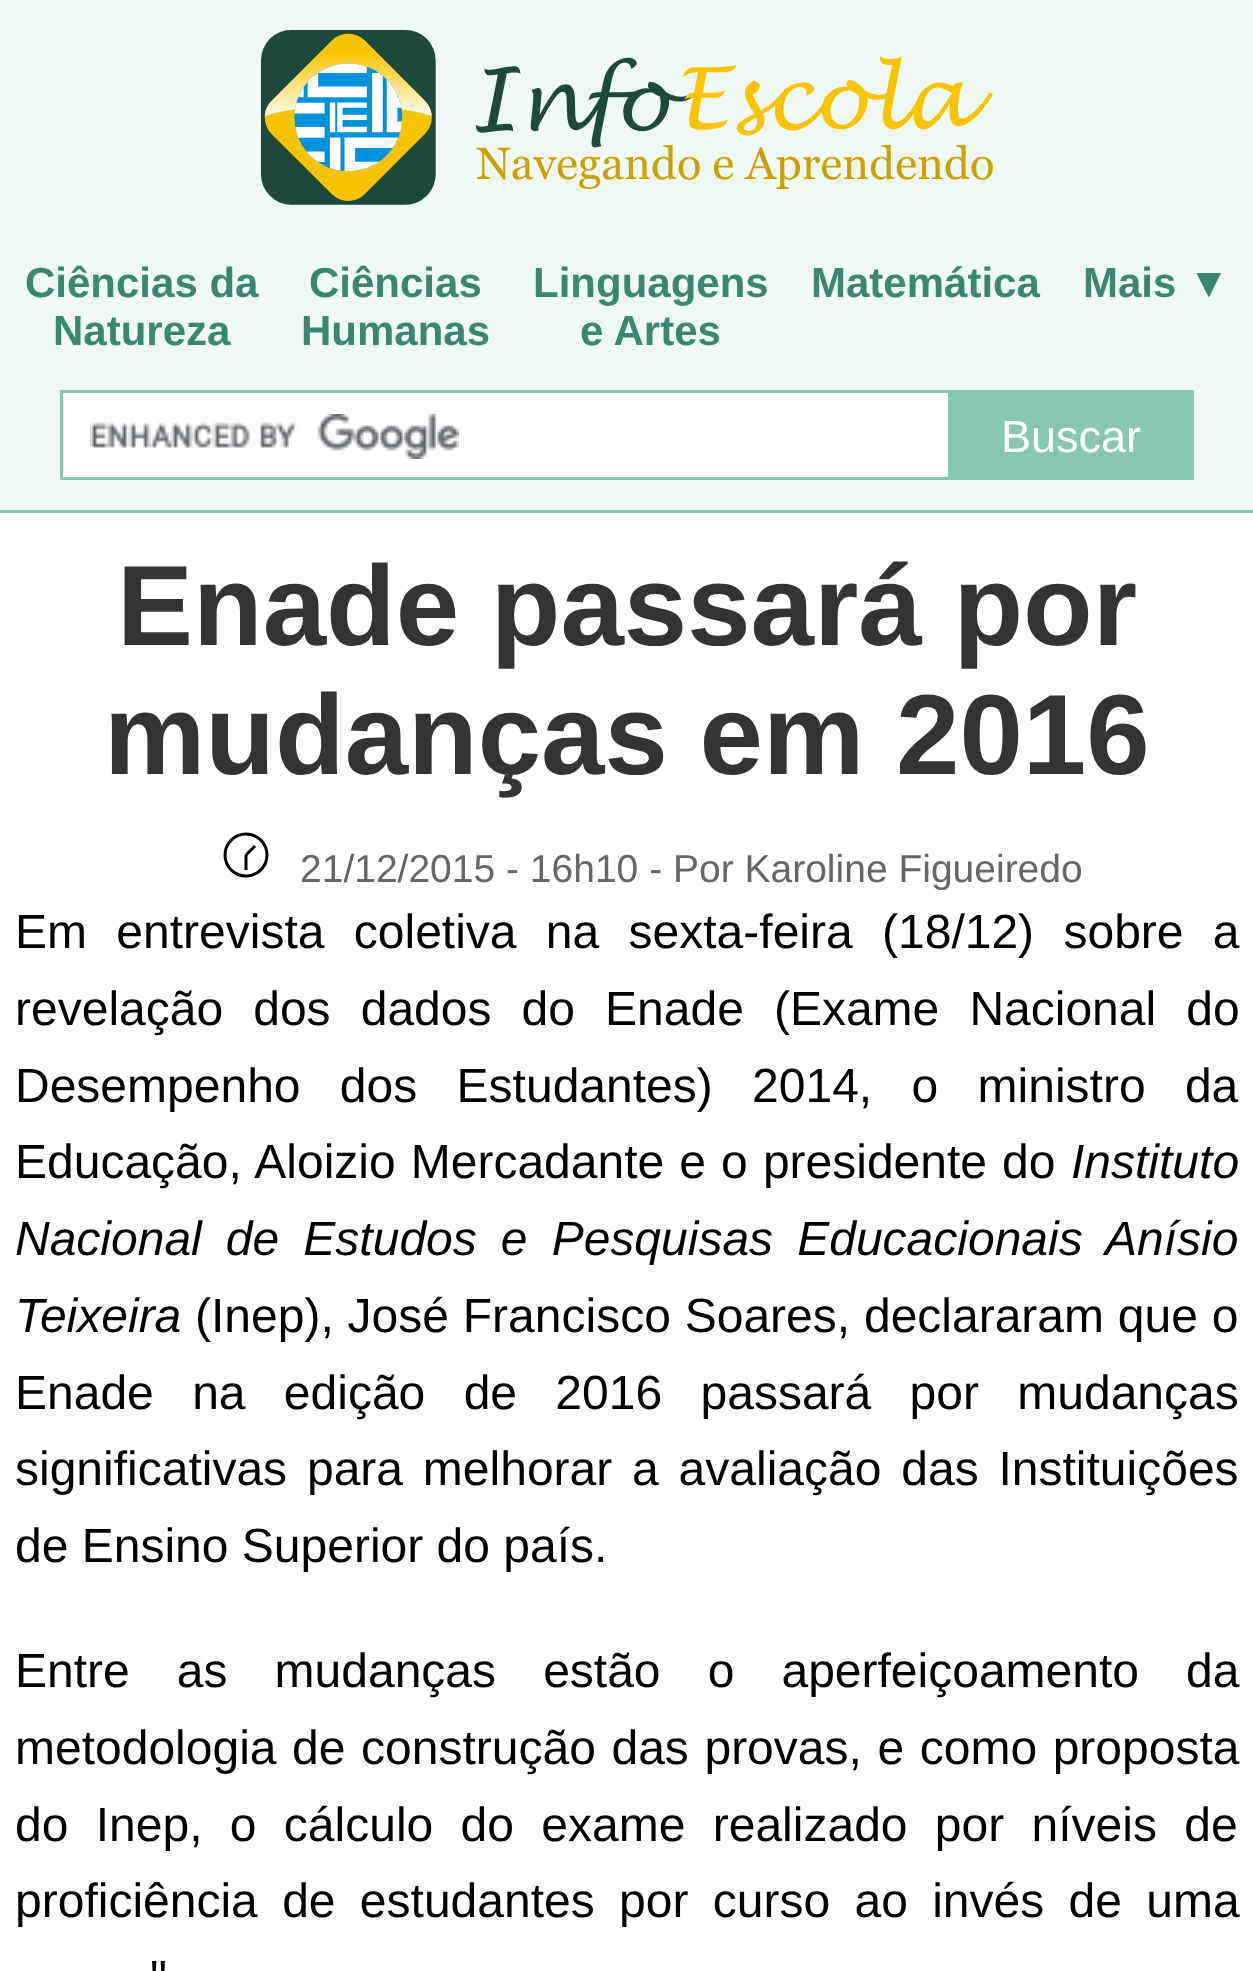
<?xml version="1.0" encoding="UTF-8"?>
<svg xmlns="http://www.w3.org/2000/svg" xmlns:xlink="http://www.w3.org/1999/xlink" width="1253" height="1971">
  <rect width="100%" height="100%" fill="#ffffff" />
  <rect width="1253" height="510" fill="#eff8f5" />
  <rect y="510" width="1253" height="3" fill="#87c7b2" />
  <image x="261" y="30" width="732" height="175" xlink:href="image1.png" />
  <rect x="63" y="393" width="885" height="84" fill="#ffffff" />
  <rect x="61.5" y="391.5" width="1131" height="87" fill="none" stroke="#87c7b2" stroke-width="3" />
  <image x="90" y="414" width="369" height="45" xlink:href="image2.png" />
  <rect x="948" y="393" width="243" height="84" fill="#87c7b2" />
  <circle cx="246" cy="855" r="21" fill="none" stroke="#000000" stroke-width="3" />
  <path d="M 246 855 v 15 m 0 -15 l 9 -9" fill="none" stroke="#000000" stroke-width="3" />
  <text x="25" y="297" style="font-family: Liberation Sans; font-size: 42px; font-weight: bold; fill: #398671">Ciências da</text>
  <text x="53" y="345" style="font-family: Liberation Sans; font-size: 42px; font-weight: bold; fill: #398671">Natureza</text>
  <text x="309" y="297" style="font-family: Liberation Sans; font-size: 42px; font-weight: bold; fill: #398671">Ciências</text>
  <text x="301" y="345" style="font-family: Liberation Sans; font-size: 42px; font-weight: bold; fill: #398671">Humanas</text>
  <text x="533" y="297" style="font-family: Liberation Sans; font-size: 42px; font-weight: bold; fill: #398671">Linguagens</text>
  <text x="580" y="345" style="font-family: Liberation Sans; font-size: 42px; font-weight: bold; fill: #398671">e Artes</text>
  <text x="811" y="297" style="font-family: Liberation Sans; font-size: 42px; font-weight: bold; fill: #398671">Matemática</text>
  <text x="1083" y="297" style="font-family: Liberation Sans; font-size: 42px; font-weight: bold; fill: #398671">Mais ▼</text>
  <text x="1001" y="452" style="font-family: Liberation Sans; font-size: 45px; fill: #ffffff">Buscar</text>
  <text x="117" y="645" style="font-family: Liberation Sans; font-size: 114px; font-weight: bold; fill: #333333">Enade passará por</text>
  <text x="104" y="774" style="font-family: Liberation Sans; font-size: 114px; font-weight: bold; fill: #333333">mudanças em 2016</text>
  <text x="300" y="882" style="font-family: Liberation Sans; font-size: 39px; fill: #666666">21/12/2015 - 16h10 - Por Karoline Figueiredo</text>
  <text x="15" y="948" word-spacing="16" style="font-family: Liberation Sans; font-size: 48px; fill: #000000">Em entrevista coletiva na sexta-feira (18/12) sobre a</text>
  <text x="15" y="1025" word-spacing="16.75" style="font-family: Liberation Sans; font-size: 48px; fill: #000000">revelação dos dados do Enade (Exame Nacional do</text>
  <text x="15" y="1102" word-spacing="26" style="font-family: Liberation Sans; font-size: 48px; fill: #000000">Desempenho dos Estudantes) 2014, o ministro da</text>
  <text x="15" y="1178" word-spacing="1.75" style="font-family: Liberation Sans; font-size: 48px; fill: #000000">Educação, Aloizio Mercadante e o presidente do</text>
  <text x="1071" y="1178" style="font-family: Liberation Sans; font-size: 48px; font-style: italic; fill: #000000">Instituto</text>
  <text x="15" y="1255" word-spacing="10.75" style="font-family: Liberation Sans; font-size: 48px; font-style: italic; fill: #000000">Nacional de Estudos e Pesquisas Educacionais Anísio</text>
  <text x="15" y="1332" style="font-family: Liberation Sans; font-size: 48px; font-style: italic; fill: #000000">Teixeira</text>
  <text x="195" y="1332" word-spacing="0.5" style="font-family: Liberation Sans; font-size: 48px; fill: #000000">(Inep), José Francisco Soares, declararam que o</text>
  <text x="15" y="1409" word-spacing="25" style="font-family: Liberation Sans; font-size: 48px; fill: #000000">Enade na edição de 2016 passará por mudanças</text>
  <text x="15" y="1485" word-spacing="6.5" style="font-family: Liberation Sans; font-size: 48px; fill: #000000">significativas para melhorar a avaliação das Instituições</text>
  <text x="15" y="1562" style="font-family: Liberation Sans; font-size: 48px; fill: #000000">de Ensino Superior do país.</text>
  <text x="15" y="1687" word-spacing="33.75" style="font-family: Liberation Sans; font-size: 48px; fill: #000000">Entre as mudanças estão o aperfeiçoamento da</text>
  <text x="15" y="1764" word-spacing="2.25" style="font-family: Liberation Sans; font-size: 48px; fill: #000000">metodologia de construção das provas, e como proposta</text>
  <text x="15" y="1841" word-spacing="14" style="font-family: Liberation Sans; font-size: 48px; fill: #000000">do Inep, o cálculo do exame realizado por níveis de</text>
  <text x="15" y="1917" word-spacing="11" style="font-family: Liberation Sans; font-size: 48px; fill: #000000">proficiência de estudantes por curso ao invés de uma</text>
  <text x="150" y="1994" word-spacing="15" style="font-family: Liberation Sans; font-size: 48px; fill: #000000">"</text>
</svg>
